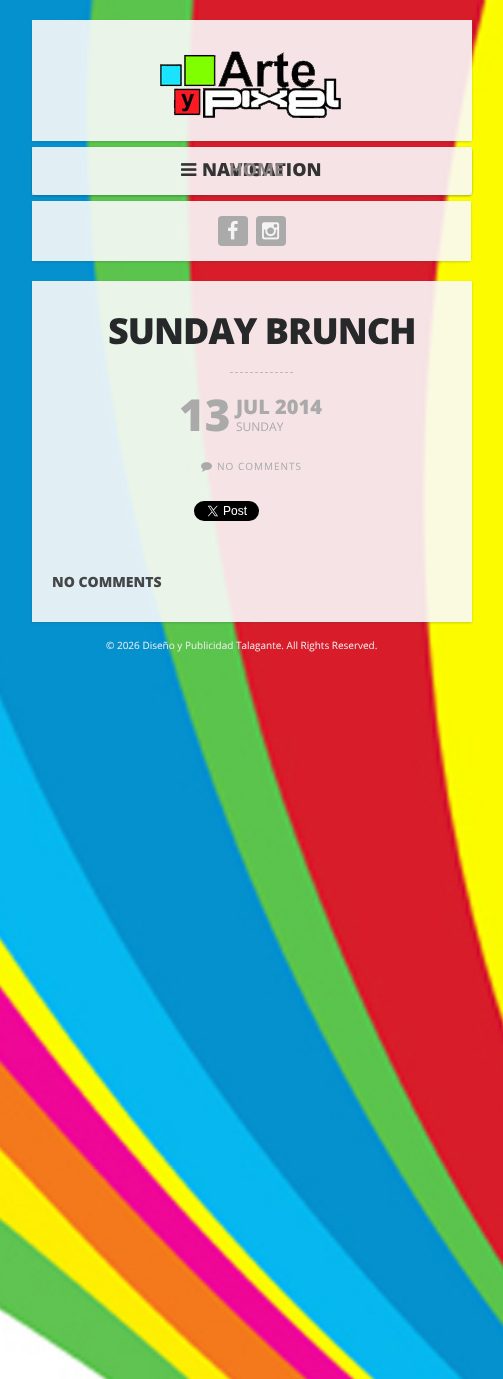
<?xml version="1.0" encoding="UTF-8"?>
<svg xmlns="http://www.w3.org/2000/svg" xmlns:xlink="http://www.w3.org/1999/xlink" width="503" height="1379">
  <defs>
    <clipPath id="clip1"><path d="M 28 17 h 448 v 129 h -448 z m 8 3 h 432 c 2 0 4 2 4 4 v 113 c 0 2 -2 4 -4 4 h -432 c -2 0 -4 -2 -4 -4 v -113 c 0 -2 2 -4 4 -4 z" clip-rule="evenodd" /></clipPath>
    <clipPath id="clip2"><path d="M 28 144 h 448 v 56 h -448 z m 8 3 h 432 c 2 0 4 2 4 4 v 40 c 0 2 -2 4 -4 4 h -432 c -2 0 -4 -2 -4 -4 v -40 c 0 -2 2 -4 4 -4 z" clip-rule="evenodd" /></clipPath>
    <clipPath id="clip3"><path d="M 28 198 h 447 v 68 h -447 z m 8 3 h 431 c 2 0 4 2 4 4 v 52 c 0 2 -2 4 -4 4 h -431 c -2 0 -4 -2 -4 -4 v -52 c 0 -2 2 -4 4 -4 z" clip-rule="evenodd" /></clipPath>
    <clipPath id="clip4"><path d="M 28 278 h 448 v 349 h -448 z m 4 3 h 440 v 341 h -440 z" clip-rule="evenodd" /></clipPath>
  </defs>
  <rect width="100%" height="100%" fill="#ffffff" />
  <image x="0" y="0" width="503" height="1379" xlink:href="image1.png" />
  <g clip-path="url(#clip1)">
    <rect x="32" y="21" width="440" height="121" rx="4" fill="#1e4646" fill-opacity="0.23" filter="blur(1px)" />
  </g>
  <rect x="32" y="20" width="440" height="121" fill="#f9f9f9" fill-opacity="0.9" />
  <image x="160" y="51" width="181" height="68" xlink:href="image2.png" />
  <g clip-path="url(#clip2)">
    <rect x="32" y="148" width="440" height="48" rx="4" fill="#1e4646" fill-opacity="0.23" filter="blur(1px)" />
  </g>
  <rect x="32" y="147" width="440" height="48" fill="#f9f9f9" fill-opacity="0.9" />
  <g clip-path="url(#clip2)">
    <rect x="32" y="148" width="440" height="48" rx="4" fill="#1e4646" fill-opacity="0.23" filter="blur(1px)" />
  </g>
  <image x="181" y="163" width="16" height="13" xlink:href="image3.png" />
  <g clip-path="url(#clip3)">
    <rect x="32" y="202" width="439" height="60" rx="4" fill="#1e4646" fill-opacity="0.23" filter="blur(1px)" />
  </g>
  <rect x="32" y="201" width="439" height="60" fill="#f9f9f9" fill-opacity="0.9" />
  <rect x="218" y="216" width="30" height="30" rx="4" fill="#aaaaaa" />
  <image x="228" y="220" width="10" height="20" xlink:href="image4.png" />
  <rect x="256" y="216" width="30" height="30" rx="4" fill="#aaaaaa" />
  <image x="262" y="222" width="18" height="18" xlink:href="image5.png" />
  <g clip-path="url(#clip4)">
    <rect x="32" y="282" width="440" height="341" fill="#1e4646" fill-opacity="0.23" filter="blur(1px)" />
  </g>
  <rect x="32" y="281" width="440" height="341" fill="#f9f9f9" fill-opacity="0.9" />
  <path d="M 230 372.5 h 63" fill="none" stroke="#bbbbbb" stroke-dasharray="3 2" />
  <image x="201" y="462" width="11" height="10" xlink:href="image6.png" />
  <image x="194" y="501" width="65" height="20" xlink:href="image7.png" />
  <text x="202" y="176" style="font-family: Open Sans; font-size: 18px; font-weight: 800; fill: #333333">NAVIGATION</text>
  <text x="229" y="176" style="font-family: Open Sans; font-size: 18px; font-weight: bold; fill: #898081">HOME</text>
  <text x="108" y="344" style="font-family: Open Sans; font-size: 36px; font-weight: 800; letter-spacing: -1px; fill: #26282a">SUNDAY BRUNCH</text>
  <text x="179" y="431" style="font-family: Open Sans; font-size: 44px; font-weight: 800; fill: #aaaaaa">13</text>
  <text x="236" y="414" style="font-family: Open Sans; font-size: 20px; font-weight: 800; fill: #aaaaaa">JUL 2014</text>
  <text x="236" y="431" style="font-family: Open Sans; font-size: 12px; fill: #aaaaaa">SUNDAY</text>
  <text x="217" y="470" style="font-family: Open Sans; font-size: 10px; letter-spacing: 1px; fill: #aaaaaa">NO COMMENTS</text>
  <text x="52" y="587" style="font-family: Open Sans; font-size: 14px; font-weight: 800; fill: #444648">NO COMMENTS</text>
  <text x="106" y="649" style="font-family: Open Sans; font-size: 10px; fill: #eeeeee">© 2026 Diseño y Publicidad Talagante. All Rights Reserved.</text>
</svg>
